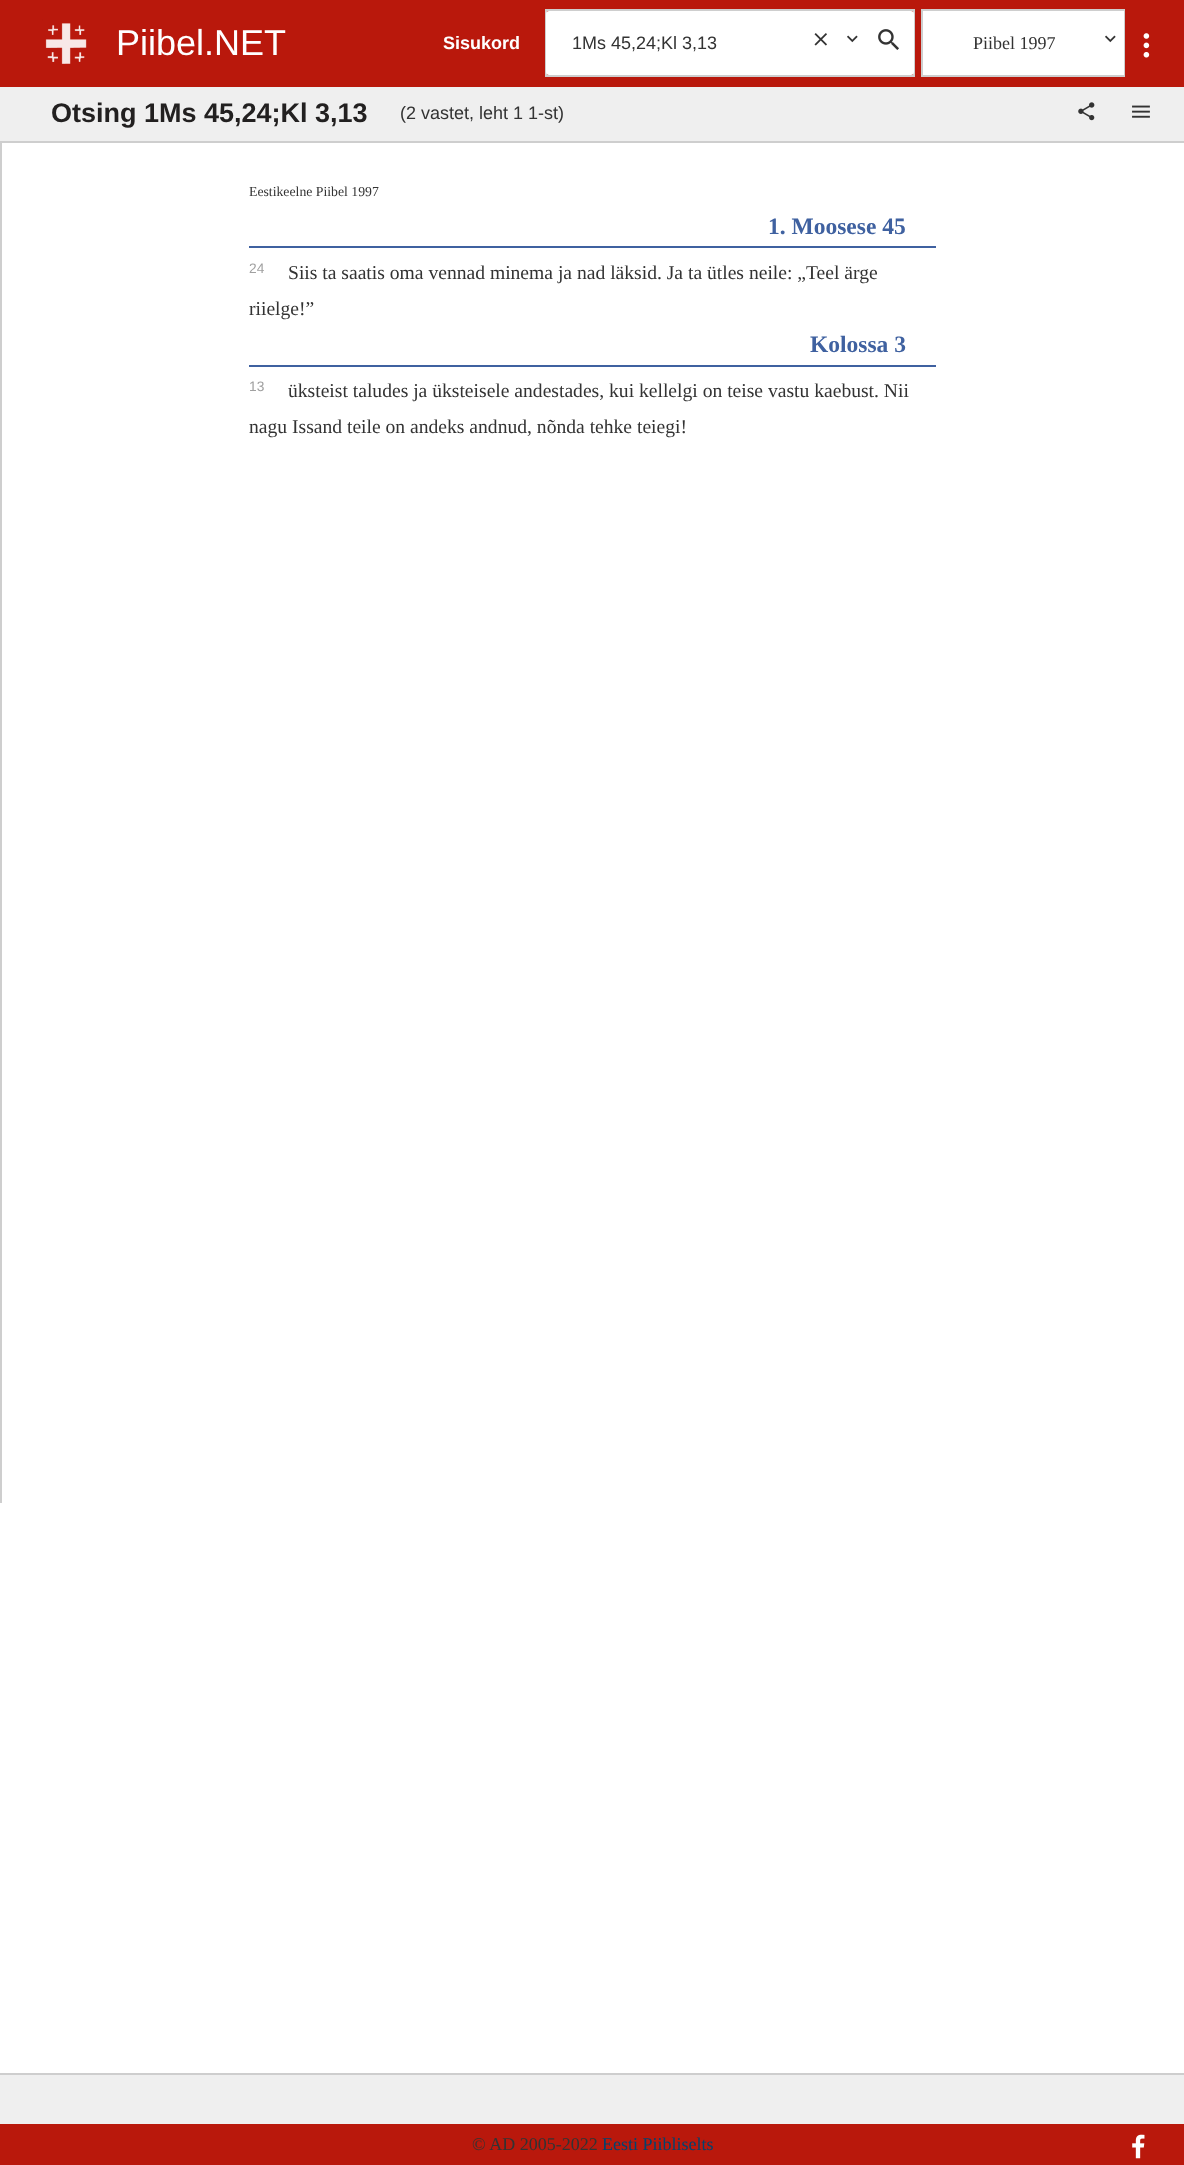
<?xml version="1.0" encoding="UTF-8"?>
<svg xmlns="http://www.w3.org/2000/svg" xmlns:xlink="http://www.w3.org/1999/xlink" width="1184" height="2165">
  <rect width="100%" height="100%" fill="#ffffff" />
  <rect width="1184" height="87" fill="#b9180c" />
  <image x="42" y="19" width="45" height="45" xlink:href="image1.png" />
  <rect x="546" y="10" width="368" height="66" fill="none" stroke="#cecece" stroke-width="2" />
  <rect x="547" y="12" width="366" height="62" rx="2" fill="#ffffff" stroke="#ffffff" stroke-width="2" />
  <image x="814" y="33" width="13" height="13" xlink:href="image2.png" />
  <image x="847" y="35" width="11" height="8" xlink:href="image3.png" />
  <image x="878" y="29" width="21" height="21" xlink:href="image4.png" />
  <rect x="925" y="13" width="197" height="60" fill="#ffffff" />
  <rect x="922" y="10" width="202" height="66" fill="none" stroke="#cecece" stroke-width="2" />
  <rect x="924" y="12" width="199" height="62" fill="none" stroke="#ffffff" stroke-width="2" />
  <image x="1105" y="35" width="11" height="8" xlink:href="image3.png" />
  <image x="1143" y="33" width="7" height="25" xlink:href="image5.png" />
  <rect y="87" width="1184" height="54" fill="#efefef" />
  <rect y="141" width="1184" height="2" fill="#cecece" />
  <image x="1078" y="102" width="17" height="19" xlink:href="image6.png" />
  <image x="1132" y="105" width="18" height="13" xlink:href="image7.png" />
  <rect y="143" width="2" height="1360" fill="#cecece" />
  <rect x="249" y="246" width="687" height="2" fill="#3f61a0" />
  <rect x="249" y="365" width="687" height="2" fill="#3f61a0" />
  <rect y="2075" width="1184" height="49" fill="#efefef" />
  <rect y="2073" width="1184" height="2" fill="#cecece" />
  <rect y="2124" width="1184" height="41" fill="#b9180c" />
  <image x="1132" y="2134" width="13" height="25" xlink:href="image8.png" />
  <text x="116" y="55" style="font-family: Liberation Sans; font-size: 36px; fill: #ffffff">Piibel.NET</text>
  <text x="443" y="49" style="font-family: Liberation Sans; font-size: 18px; font-weight: bold; fill: #ffffff">Sisukord</text>
  <text x="572" y="49" style="font-family: Liberation Sans; font-size: 18px; fill: #333333">1Ms 45,24;Kl 3,13</text>
  <text x="973" y="49" style="font-family: Liberation Serif; font-size: 18px; fill: #333333">Piibel 1997</text>
  <text x="51" y="122" style="font-family: Liberation Sans; font-size: 27px; font-weight: bold; fill: #222020">Otsing 1Ms 45,24;Kl 3,13</text>
  <text x="400" y="119" style="font-family: Liberation Sans; font-size: 18px; fill: #333333">(2 vastet, leht 1 1-st)</text>
  <text x="249" y="196" style="font-family: Liberation Serif; font-size: 13.75px; fill: #333333">Eestikeelne Piibel 1997</text>
  <text x="768" y="234" style="font-family: Liberation Serif; font-size: 23.5px; font-weight: bold; fill: #3f61a0">1. Moosese 45</text>
  <text x="249" y="273" style="font-family: Liberation Sans; font-size: 13.75px; fill: #a0a0a0">24</text>
  <text x="288" y="279" style="font-family: Liberation Serif; font-size: 19.6px; fill: #333333">Siis ta saatis oma vennad minema ja nad läksid. Ja ta ütles neile: „Teel ärge</text>
  <text x="249" y="315" style="font-family: Liberation Serif; font-size: 19.6px; fill: #333333">riielge!”</text>
  <text x="810" y="352" style="font-family: Liberation Serif; font-size: 23.5px; font-weight: bold; fill: #3f61a0">Kolossa 3</text>
  <text x="249" y="391" style="font-family: Liberation Sans; font-size: 13.75px; fill: #a0a0a0">13</text>
  <text x="288" y="397" style="font-family: Liberation Serif; font-size: 19.6px; fill: #333333">üksteist taludes ja üksteisele andestades, kui kellelgi on teise vastu kaebust. Nii</text>
  <text x="249" y="433" style="font-family: Liberation Serif; font-size: 19.6px; fill: #333333">nagu Issand teile on andeks andnud, nõnda tehke teiegi!</text>
  <text x="472" y="2150" style="font-family: Liberation Serif; font-size: 18px; fill: #333333">© AD 2005-2022</text>
  <text x="602" y="2150" style="font-family: Liberation Serif; font-size: 18px; fill: #01436f">Eesti Piibliselts</text>
</svg>
